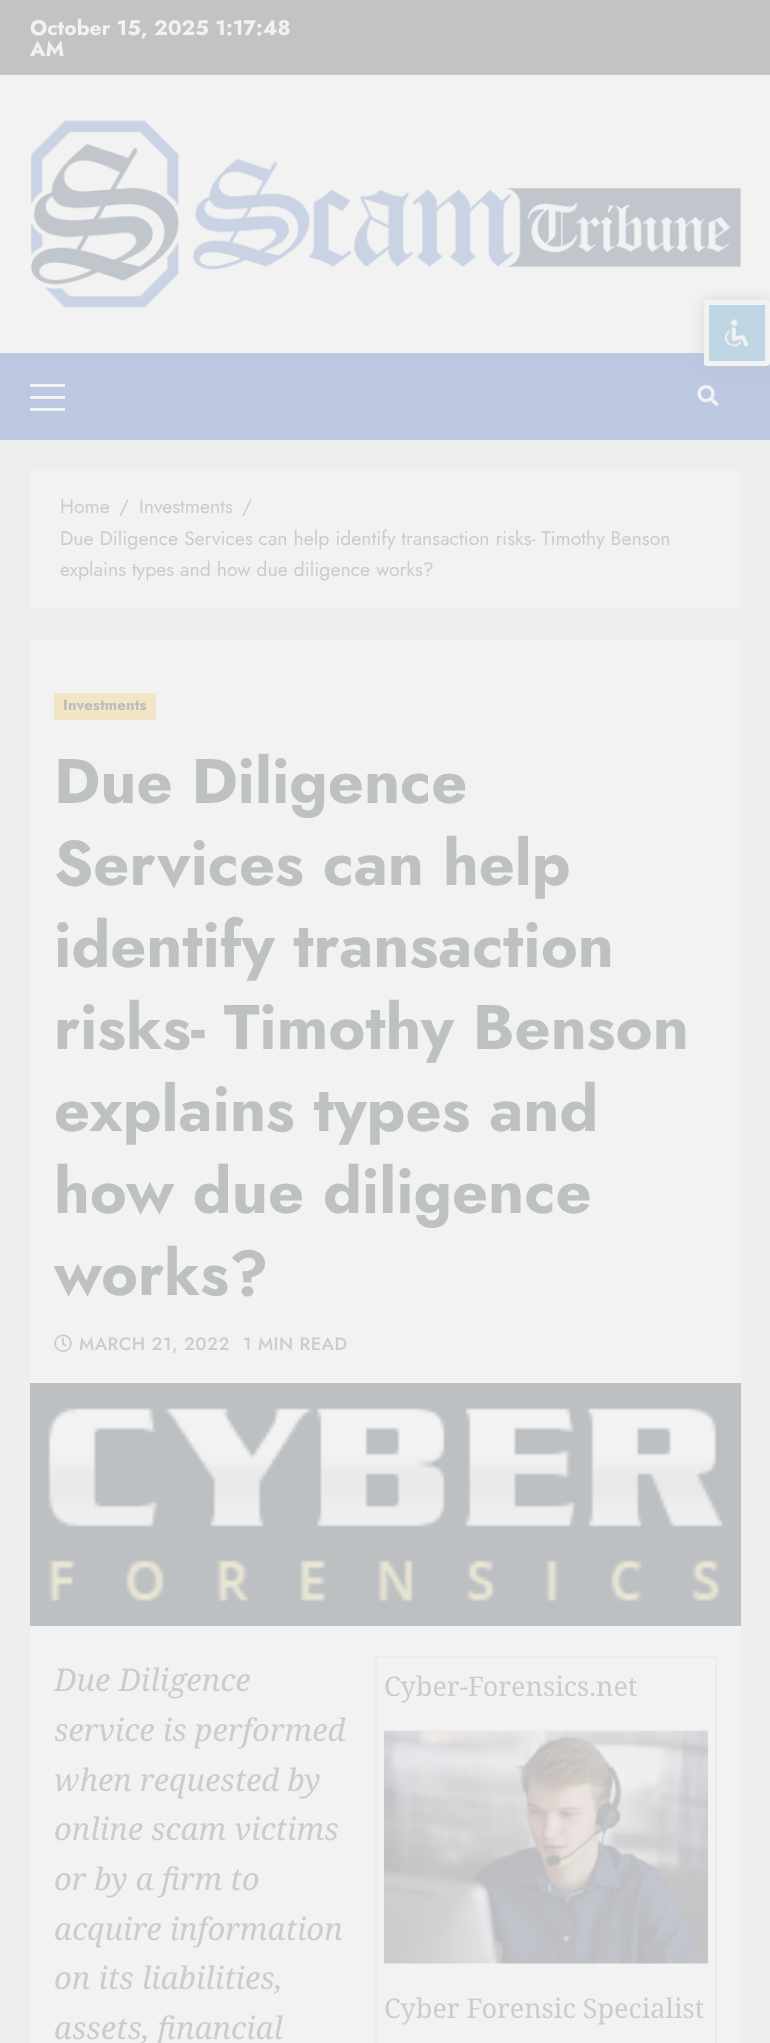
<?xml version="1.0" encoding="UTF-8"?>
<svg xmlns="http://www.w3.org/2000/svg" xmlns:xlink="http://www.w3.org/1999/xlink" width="770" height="2043">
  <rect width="100%" height="100%" fill="#eeeeee" />
  <rect width="770" height="75" fill="#c3c3c3" />
  <rect y="75" width="770" height="278" fill="#f2f2f2" />
  <image x="30" y="120" width="711" height="188" xlink:href="image1.png" />
  <rect y="353" width="770" height="87" fill="#bcc8e2" />
  <rect x="30" y="396" width="35" height="3" fill="#f2f2f2" />
  <rect x="30" y="384" width="35" height="3" fill="#f2f2f2" />
  <rect x="30" y="408" width="35" height="3" fill="#f2f2f2" />
  <image x="697" y="385" width="22" height="22" xlink:href="image2.png" />
  <rect x="30" y="470" width="711" height="139" fill="#f2f2f2" />
  <rect x="30" y="639" width="711" height="1404" fill="#f2f2f2" />
  <rect x="54" y="693" width="102" height="27" fill="#f2e6c7" />
  <image x="54" y="1334" width="18" height="18" xlink:href="image3.png" />
  <image x="30" y="1383" width="711" height="243" xlink:href="image4.png" />
  <rect x="376" y="1657" width="340" height="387" fill="none" stroke="#ebebeb" stroke-width="2" />
  <image x="384" y="1729" width="324" height="235" xlink:href="image5.png" />
  <rect x="704" y="300" width="66" height="66" rx="3" fill="#bcbcbc" fill-opacity="0.5" filter="blur(7px)" />
  <rect x="706.5" y="302.5" width="61" height="61" rx="0.5" fill="#bed5e4" stroke="#f2f2f2" stroke-width="5" />
  <image x="724" y="319" width="25" height="28" xlink:href="image6.png" />
  <text x="30" y="35" style="font-family: Jost; font-size: 21px; font-weight: bold; fill: #f2f2f2">October 15, 2025 1:17:48</text>
  <text x="30" y="56" style="font-family: Jost; font-size: 21px; font-weight: bold; fill: #f2f2f2">AM</text>
  <text x="60" y="513" style="font-family: Jost; font-size: 19.5px; fill: #cccccc">Home</text>
  <text x="119" y="513" style="font-family: Jost; font-size: 19.5px; fill: #cccccc">/</text>
  <text x="139" y="513" style="font-family: Jost; font-size: 19.5px; fill: #cccccc">Investments</text>
  <text x="242" y="513" style="font-family: Jost; font-size: 19.5px; fill: #cccccc">/</text>
  <text x="60" y="545" style="font-family: Jost; font-size: 19.5px; fill: #cccccc">Due Diligence Services can help identify transaction risks- Timothy Benson</text>
  <text x="60" y="576" style="font-family: Jost; font-size: 19.5px; fill: #cccccc">explains types and how due diligence works?</text>
  <text x="63" y="710" style="font-family: Jost; font-size: 15px; font-weight: bold; letter-spacing: 0.1px; fill: #bcbcbc">Investments</text>
  <text x="54" y="803" style="font-family: Jost; font-size: 63px; font-weight: bold; fill: #bdc2c0">Due Diligence</text>
  <text x="54" y="885" style="font-family: Jost; font-size: 63px; font-weight: bold; fill: #bdc2c0">Services can help</text>
  <text x="54" y="967" style="font-family: Jost; font-size: 63px; font-weight: bold; fill: #bdc2c0">identify transaction</text>
  <text x="54" y="1049" style="font-family: Jost; font-size: 63px; font-weight: bold; fill: #bdc2c0">risks- Timothy Benson</text>
  <text x="54" y="1131" style="font-family: Jost; font-size: 63px; font-weight: bold; fill: #bdc2c0">explains types and</text>
  <text x="54" y="1213" style="font-family: Jost; font-size: 63px; font-weight: bold; fill: #bdc2c0">how due diligence</text>
  <text x="54" y="1295" style="font-family: Jost; font-size: 63px; font-weight: bold; fill: #bdc2c0">works?</text>
  <text x="79" y="1350" style="font-family: Jost; font-size: 18px; font-weight: 500; letter-spacing: 0.5px; fill: #cccccc">MARCH 21, 2022</text>
  <text x="243" y="1350" style="font-family: Jost; font-size: 18px; font-weight: 500; letter-spacing: 0.5px; fill: #cccccc">1 MIN READ</text>
  <text x="54" y="1691" style="font-family: Noto Serif; font-size: 31px; font-style: italic; fill: #cccccc">Due Diligence</text>
  <text x="54" y="1741" style="font-family: Noto Serif; font-size: 31px; font-style: italic; fill: #cccccc">service is performed</text>
  <text x="54" y="1791" style="font-family: Noto Serif; font-size: 31px; font-style: italic; fill: #cccccc">when requested by</text>
  <text x="54" y="1840" style="font-family: Noto Serif; font-size: 31px; font-style: italic; fill: #cccccc">online scam victims</text>
  <text x="54" y="1890" style="font-family: Noto Serif; font-size: 31px; font-style: italic; fill: #cccccc">or by a firm to</text>
  <text x="54" y="1940" style="font-family: Noto Serif; font-size: 31px; font-style: italic; fill: #cccccc">acquire information</text>
  <text x="54" y="1989" style="font-family: Noto Serif; font-size: 31px; font-style: italic; fill: #cccccc">on its liabilities,</text>
  <text x="54" y="2039" style="font-family: Noto Serif; font-size: 31px; font-style: italic; fill: #cccccc">assets, financial</text>
  <text x="384" y="1696" style="font-family: Noto Serif; font-size: 27px; fill: #cccccc">Cyber-Forensics.net</text>
  <text x="384" y="2018" style="font-family: Noto Serif; font-size: 27px; fill: #cccccc">Cyber Forensic Specialist</text>
</svg>
